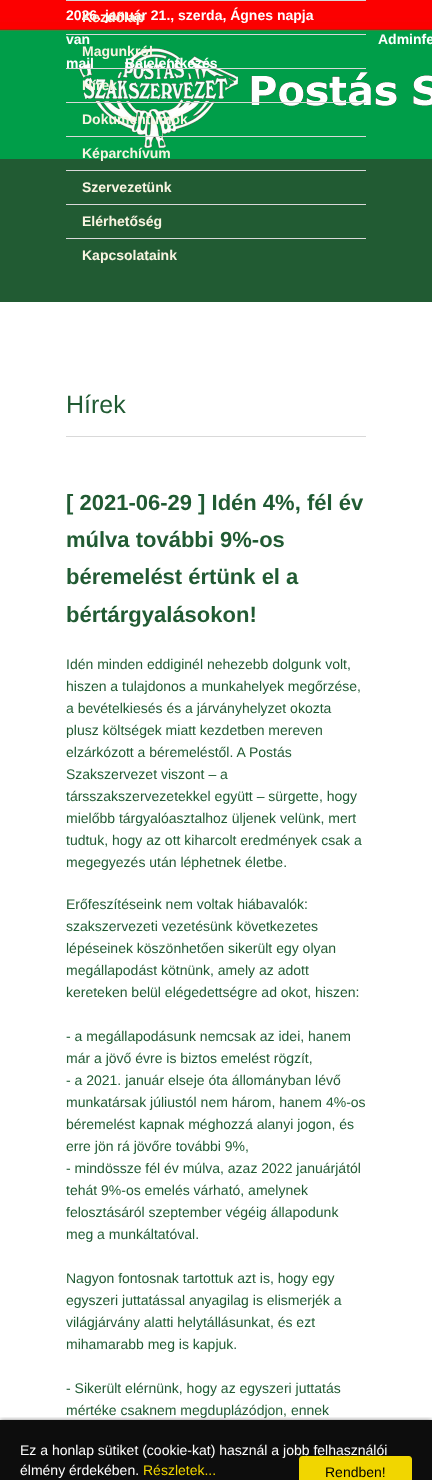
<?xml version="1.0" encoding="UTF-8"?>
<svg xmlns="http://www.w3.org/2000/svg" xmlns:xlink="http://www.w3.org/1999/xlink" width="432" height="1480">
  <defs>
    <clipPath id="clip1"><rect x="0" y="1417" width="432" height="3" /></clipPath>
  </defs>
  <rect width="100%" height="100%" fill="#ffffff" />
  <rect y="1420" width="432" height="60" fill="#0d0d0d" />
  <rect y="159" width="432" height="143" fill="#215b33" />
  <image x="0" y="0" width="432" height="159" xlink:href="image1.png" />
  <rect x="66" width="300" height="1" fill="#d9d9d9" />
  <rect x="66" y="34" width="300" height="1" fill="#d9d9d9" />
  <image x="79" y="48" width="353" height="100" xlink:href="image2.png" />
  <rect x="66" y="102" width="300" height="1" fill="#d9d9d9" />
  <rect x="66" y="136" width="300" height="1" fill="#d9d9d9" />
  <rect x="66" y="170" width="300" height="1" fill="#d9d9d9" />
  <rect x="66" y="204" width="300" height="1" fill="#d9d9d9" />
  <rect x="66" y="238" width="300" height="1" fill="#d9d9d9" />
  <rect x="66" y="436" width="300" height="1" fill="#d9d9d9" />
  <g clip-path="url(#clip1)">
    <rect y="1420" width="432" height="60" fill="#000000" fill-opacity="0.5" filter="blur(2px)" />
  </g>
  <path d="M 302 1456 h 107 c 1.5 0 3 1.5 3 3 v 21 h -113 v -21 c 0 -1.5 1.5 -3 3 -3 z" fill="#f1d600" />
  <text x="66" y="20" style="font-family: Liberation Sans; font-size: 14px; font-weight: bold; fill: #ffffff">2026. január 21., szerda, Ágnes napja</text>
  <text x="66" y="44" style="font-family: Liberation Sans; font-size: 14px; font-weight: bold; fill: #ffffff">van</text>
  <text x="378" y="44" style="font-family: Liberation Sans; font-size: 14px; font-weight: bold; fill: #ffffff">Adminfe</text>
  <text x="66" y="68" style="font-family: Liberation Sans; font-size: 14px; font-weight: bold; fill: #ffffff">mail</text>
  <text x="125" y="68" style="font-family: Liberation Sans; font-size: 14px; font-weight: bold; fill: #ffffff">Bejelentkezés</text>
  <text x="82" y="22" style="font-family: Liberation Sans; font-size: 14px; font-weight: bold; fill: #f9f4e1">Kezdőlap</text>
  <text x="82" y="56" style="font-family: Liberation Sans; font-size: 14px; font-weight: bold; fill: #f9f4e1">Magunkról</text>
  <rect x="66" y="68" width="300" height="1" fill="#d9d9d9" />
  <text x="82" y="90" style="font-family: Liberation Sans; font-size: 14px; font-weight: bold; fill: #f9f4e1">Hírek</text>
  <text x="82" y="124" style="font-family: Liberation Sans; font-size: 14px; font-weight: bold; fill: #f9f4e1">Dokumentumok</text>
  <text x="82" y="158" style="font-family: Liberation Sans; font-size: 14px; font-weight: bold; fill: #f9f4e1">Képarchívum</text>
  <text x="82" y="192" style="font-family: Liberation Sans; font-size: 14px; font-weight: bold; fill: #f9f4e1">Szervezetünk</text>
  <text x="82" y="226" style="font-family: Liberation Sans; font-size: 14px; font-weight: bold; fill: #f9f4e1">Elérhetőség</text>
  <text x="82" y="260" style="font-family: Liberation Sans; font-size: 14px; font-weight: bold; fill: #f9f4e1">Kapcsolataink</text>
  <text x="66" y="413" style="font-family: Liberation Sans; font-size: 25px; fill: #215b33">Hírek</text>
  <text x="66" y="510" style="font-family: Liberation Sans; font-size: 22px; font-weight: bold; fill: #215b33">[ 2021-06-29 ] Idén 4%, fél év</text>
  <text x="66" y="547" style="font-family: Liberation Sans; font-size: 22px; font-weight: bold; fill: #215b33">múlva további 9%-os</text>
  <text x="66" y="584" style="font-family: Liberation Sans; font-size: 22px; font-weight: bold; fill: #215b33">béremelést értünk el a</text>
  <text x="66" y="622" style="font-family: Liberation Sans; font-size: 22px; font-weight: bold; fill: #215b33">bértárgyalásokon!</text>
  <text x="66" y="669" style="font-family: Liberation Sans; font-size: 14px; fill: #215b33">Idén minden eddiginél nehezebb dolgunk volt,</text>
  <text x="66" y="691" style="font-family: Liberation Sans; font-size: 14px; fill: #215b33">hiszen a tulajdonos a munkahelyek megőrzése,</text>
  <text x="66" y="713" style="font-family: Liberation Sans; font-size: 14px; fill: #215b33">a bevételkiesés és a járványhelyzet okozta</text>
  <text x="66" y="735" style="font-family: Liberation Sans; font-size: 14px; fill: #215b33">plusz költségek miatt kezdetben mereven</text>
  <text x="66" y="757" style="font-family: Liberation Sans; font-size: 14px; fill: #215b33">elzárkózott a béremeléstől. A Postás</text>
  <text x="66" y="779" style="font-family: Liberation Sans; font-size: 14px; fill: #215b33">Szakszervezet viszont – a</text>
  <text x="66" y="801" style="font-family: Liberation Sans; font-size: 14px; fill: #215b33">társszakszervezetekkel együtt – sürgette, hogy</text>
  <text x="66" y="823" style="font-family: Liberation Sans; font-size: 14px; fill: #215b33">mielőbb tárgyalóasztalhoz üljenek velünk, mert</text>
  <text x="66" y="845" style="font-family: Liberation Sans; font-size: 14px; fill: #215b33">tudtuk, hogy az ott kiharcolt eredmények csak a</text>
  <text x="66" y="867" style="font-family: Liberation Sans; font-size: 14px; fill: #215b33">megegyezés után léphetnek életbe.</text>
  <text x="66" y="909" style="font-family: Liberation Sans; font-size: 14px; fill: #215b33">Erőfeszítéseink nem voltak hiábavalók:</text>
  <text x="66" y="931" style="font-family: Liberation Sans; font-size: 14px; fill: #215b33">szakszervezeti vezetésünk következetes</text>
  <text x="66" y="953" style="font-family: Liberation Sans; font-size: 14px; fill: #215b33">lépéseinek köszönhetően sikerült egy olyan</text>
  <text x="66" y="975" style="font-family: Liberation Sans; font-size: 14px; fill: #215b33">megállapodást kötnünk, amely az adott</text>
  <text x="66" y="997" style="font-family: Liberation Sans; font-size: 14px; fill: #215b33">kereteken belül elégedettségre ad okot, hiszen:</text>
  <text x="66" y="1041" style="font-family: Liberation Sans; font-size: 14px; fill: #215b33">- a megállapodásunk nemcsak az idei, hanem</text>
  <text x="66" y="1063" style="font-family: Liberation Sans; font-size: 14px; fill: #215b33">már a jövő évre is biztos emelést rögzít,</text>
  <text x="66" y="1085" style="font-family: Liberation Sans; font-size: 14px; fill: #215b33">- a 2021. január elseje óta állományban lévő</text>
  <text x="66" y="1107" style="font-family: Liberation Sans; font-size: 14px; fill: #215b33">munkatársak júliustól nem három, hanem 4%-os</text>
  <text x="66" y="1129" style="font-family: Liberation Sans; font-size: 14px; fill: #215b33">béremelést kapnak méghozzá alanyi jogon, és</text>
  <text x="66" y="1151" style="font-family: Liberation Sans; font-size: 14px; fill: #215b33">erre jön rá jövőre további 9%,</text>
  <text x="66" y="1173" style="font-family: Liberation Sans; font-size: 14px; fill: #215b33">- mindössze fél év múlva, azaz 2022 januárjától</text>
  <text x="66" y="1195" style="font-family: Liberation Sans; font-size: 14px; fill: #215b33">tehát 9%-os emelés várható, amelynek</text>
  <text x="66" y="1217" style="font-family: Liberation Sans; font-size: 14px; fill: #215b33">felosztásáról szeptember végéig állapodunk</text>
  <text x="66" y="1239" style="font-family: Liberation Sans; font-size: 14px; fill: #215b33">meg a munkáltatóval.</text>
  <text x="66" y="1283" style="font-family: Liberation Sans; font-size: 14px; fill: #215b33">Nagyon fontosnak tartottuk azt is, hogy egy</text>
  <text x="66" y="1305" style="font-family: Liberation Sans; font-size: 14px; fill: #215b33">egyszeri juttatással anyagilag is elismerjék a</text>
  <text x="66" y="1327" style="font-family: Liberation Sans; font-size: 14px; fill: #215b33">világjárvány alatti helytállásunkat, és ezt</text>
  <text x="66" y="1349" style="font-family: Liberation Sans; font-size: 14px; fill: #215b33">mihamarabb meg is kapjuk.</text>
  <text x="66" y="1393" style="font-family: Liberation Sans; font-size: 14px; fill: #215b33">- Sikerült elérnünk, hogy az egyszeri juttatás</text>
  <text x="66" y="1415" style="font-family: Liberation Sans; font-size: 14px; fill: #215b33">mértéke csaknem megduplázódjon, ennek</text>
  <text x="20" y="1455" style="font-family: Liberation Sans; font-size: 14px; fill: #ffffff">Ez a honlap sütiket (cookie-kat) használ a jobb felhasználói</text>
  <text x="20" y="1475" style="font-family: Liberation Sans; font-size: 14px; fill: #ffffff">élmény érdekében.</text>
  <text x="143" y="1475" style="font-family: Liberation Sans; font-size: 14px; fill: #f1d600">Részletek...</text>
  <text x="325" y="1477" style="font-family: Liberation Sans; font-size: 14px; fill: #000000">Rendben!</text>
</svg>
